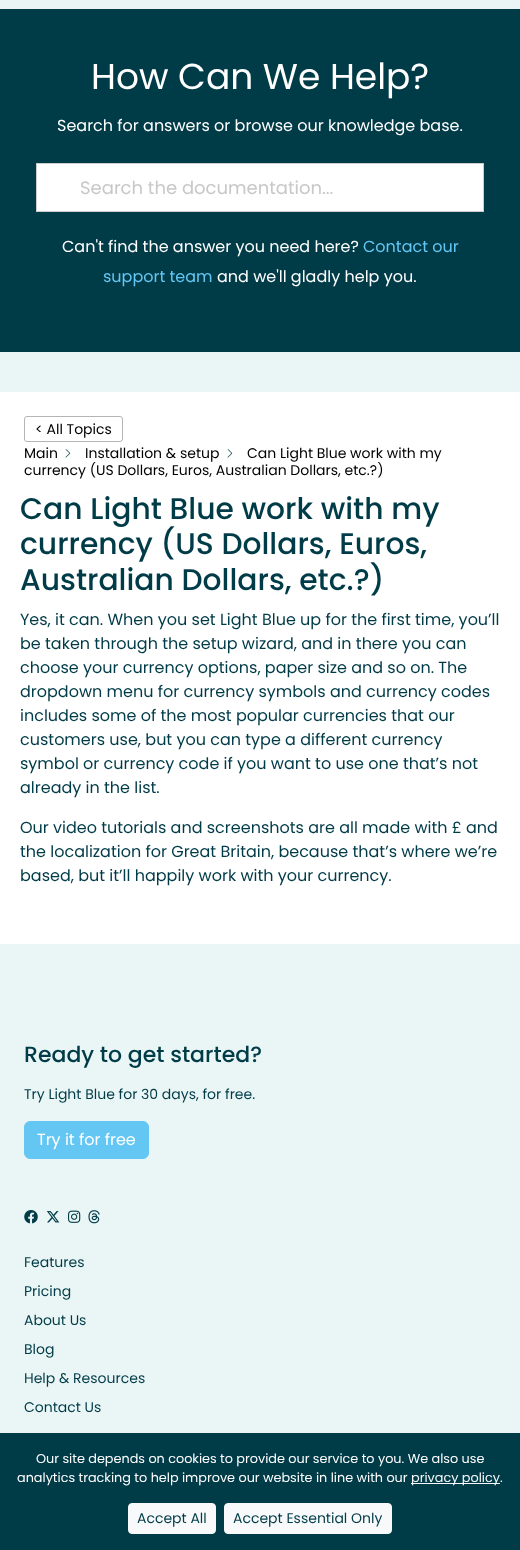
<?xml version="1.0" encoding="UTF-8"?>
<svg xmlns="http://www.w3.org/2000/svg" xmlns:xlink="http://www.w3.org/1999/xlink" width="520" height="1550">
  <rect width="100%" height="100%" fill="#eaf6f5" />
  <rect y="9" width="520" height="343" fill="#003b48" />
  <rect x="36.5" y="163.5" width="447" height="48" fill="#ffffff" stroke="#cccccc" />
  <rect y="392" width="520" height="552" fill="#ffffff" />
  <rect x="24.5" y="416.5" width="98" height="25" rx="2.5" fill="none" stroke="#b5b5b5" />
  <image x="65" y="449" width="6" height="9" xlink:href="image1.png" />
  <image x="227" y="449" width="6" height="9" xlink:href="image1.png" />
  <rect x="24.5" y="1121.5" width="124" height="37" rx="5.5" fill="#64c7f3" stroke="#64c7f3" />
  <image x="24" y="1210" width="14" height="14" xlink:href="image2.png" />
  <image x="46" y="1211" width="14" height="12" xlink:href="image3.png" />
  <image x="68" y="1210" width="13" height="13" xlink:href="image4.png" />
  <image x="88" y="1210" width="12" height="14" xlink:href="image5.png" />
  <rect y="1433" width="520" height="117" fill="#003b48" />
  <rect x="411" y="1483" width="89" height="1" fill="#f8f9fa" />
  <rect x="128.5" y="1503.5" width="87" height="30" rx="3.5" fill="#f8f9fa" stroke="#f8f9fa" />
  <rect x="224.5" y="1503.5" width="167" height="30" rx="3.5" fill="#f8f9fa" stroke="#f8f9fa" />
  <text x="91" y="89" style="font-family: Poppins; font-size: 36px; fill: #ffffff">How Can We Help?</text>
  <text x="57" y="131" style="font-family: Poppins; font-size: 16px; fill: #ffffff">Search for answers or browse our knowledge base.</text>
  <text x="80" y="194" style="font-family: Poppins; font-size: 18px; fill: #c9c7c7">Search the documentation...</text>
  <text x="62" y="252" style="font-family: Poppins; font-size: 16px; fill: #ffffff">Can't find the answer you need here?</text>
  <text x="363" y="252" style="font-family: Poppins; font-size: 16px; fill: #64c7f3">Contact our</text>
  <text x="103" y="282" style="font-family: Poppins; font-size: 16px; fill: #64c7f3">support team</text>
  <text x="217" y="282" style="font-family: Poppins; font-size: 16px; fill: #ffffff">and we'll gladly help you.</text>
  <text x="35" y="434" style="font-family: Poppins; font-size: 14px; fill: #000000">&lt; All Topics</text>
  <text x="24" y="458" style="font-family: Poppins; font-size: 14px; fill: #000000">Main</text>
  <text x="85" y="458" style="font-family: Poppins; font-size: 14px; fill: #000000">Installation &amp; setup</text>
  <text x="247" y="458" style="font-family: Poppins; font-size: 14px; fill: #000000">Can Light Blue work with my</text>
  <text x="24" y="475" style="font-family: Poppins; font-size: 14px; fill: #000000">currency (US Dollars, Euros, Australian Dollars, etc.?)</text>
  <text x="20" y="519" style="font-family: Poppins; font-size: 29.75px; font-weight: 500; fill: #003b48">Can Light Blue work with my</text>
  <text x="20" y="554" style="font-family: Poppins; font-size: 29.75px; font-weight: 500; fill: #003b48">currency (US Dollars, Euros,</text>
  <text x="20" y="590" style="font-family: Poppins; font-size: 29.75px; font-weight: 500; fill: #003b48">Australian Dollars, etc.?)</text>
  <text x="20" y="625" style="font-family: Poppins; font-size: 16px; fill: #003b48">Yes, it can. When you set Light Blue up for the first time, you’ll</text>
  <text x="20" y="649" style="font-family: Poppins; font-size: 16px; fill: #003b48">be taken through the setup wizard, and in there you can</text>
  <text x="20" y="673" style="font-family: Poppins; font-size: 16px; fill: #003b48">choose your currency options, paper size and so on. The</text>
  <text x="20" y="697" style="font-family: Poppins; font-size: 16px; fill: #003b48">dropdown menu for currency symbols and currency codes</text>
  <text x="20" y="721" style="font-family: Poppins; font-size: 16px; fill: #003b48">includes some of the most popular currencies that our</text>
  <text x="20" y="745" style="font-family: Poppins; font-size: 16px; fill: #003b48">customers use, but you can type a different currency</text>
  <text x="20" y="769" style="font-family: Poppins; font-size: 16px; fill: #003b48">symbol or currency code if you want to use one that’s not</text>
  <text x="20" y="793" style="font-family: Poppins; font-size: 16px; fill: #003b48">already in the list.</text>
  <text x="20" y="833" style="font-family: Poppins; font-size: 16px; fill: #003b48">Our video tutorials and screenshots are all made with £ and</text>
  <text x="20" y="857" style="font-family: Poppins; font-size: 16px; fill: #003b48">the localization for Great Britain, because that’s where we’re</text>
  <text x="20" y="881" style="font-family: Poppins; font-size: 16px; fill: #003b48">based, but it’ll happily work with your currency.</text>
  <text x="24" y="1062" style="font-family: Poppins; font-size: 22px; font-weight: 500; fill: #003b48">Ready to get started?</text>
  <text x="24" y="1099" style="font-family: Poppins; font-size: 14px; fill: #003b48">Try Light Blue for 30 days, for free.</text>
  <text x="37" y="1145" style="font-family: Poppins; font-size: 16px; fill: #ffffff">Try it for free</text>
  <text x="24" y="1267" style="font-family: Poppins; font-size: 14px; fill: #003b48">Features</text>
  <text x="24" y="1296" style="font-family: Poppins; font-size: 14px; fill: #003b48">Pricing</text>
  <text x="24" y="1325" style="font-family: Poppins; font-size: 14px; fill: #003b48">About Us</text>
  <text x="24" y="1354" style="font-family: Poppins; font-size: 14px; fill: #003b48">Blog</text>
  <text x="24" y="1383" style="font-family: Poppins; font-size: 14px; fill: #003b48">Help &amp; Resources</text>
  <text x="24" y="1412" style="font-family: Poppins; font-size: 14px; fill: #003b48">Contact Us</text>
  <text x="36" y="1463" style="font-family: Poppins; font-size: 12.8px; fill: #ffffff">Our site depends on cookies to provide our service to you. We also use</text>
  <text x="17" y="1482" style="font-family: Poppins; font-size: 12.8px; fill: #ffffff">analytics tracking to help improve our website in line with our</text>
  <text x="411" y="1482" style="font-family: Poppins; font-size: 12.8px; fill: #f8f9fa">privacy policy</text>
  <text x="500" y="1482" style="font-family: Poppins; font-size: 12.8px; fill: #ffffff">.</text>
  <text x="137" y="1523" style="font-family: Poppins; font-size: 14px; fill: #003b48">Accept All</text>
  <text x="233" y="1523" style="font-family: Poppins; font-size: 14px; fill: #003b48">Accept Essential Only</text>
</svg>
